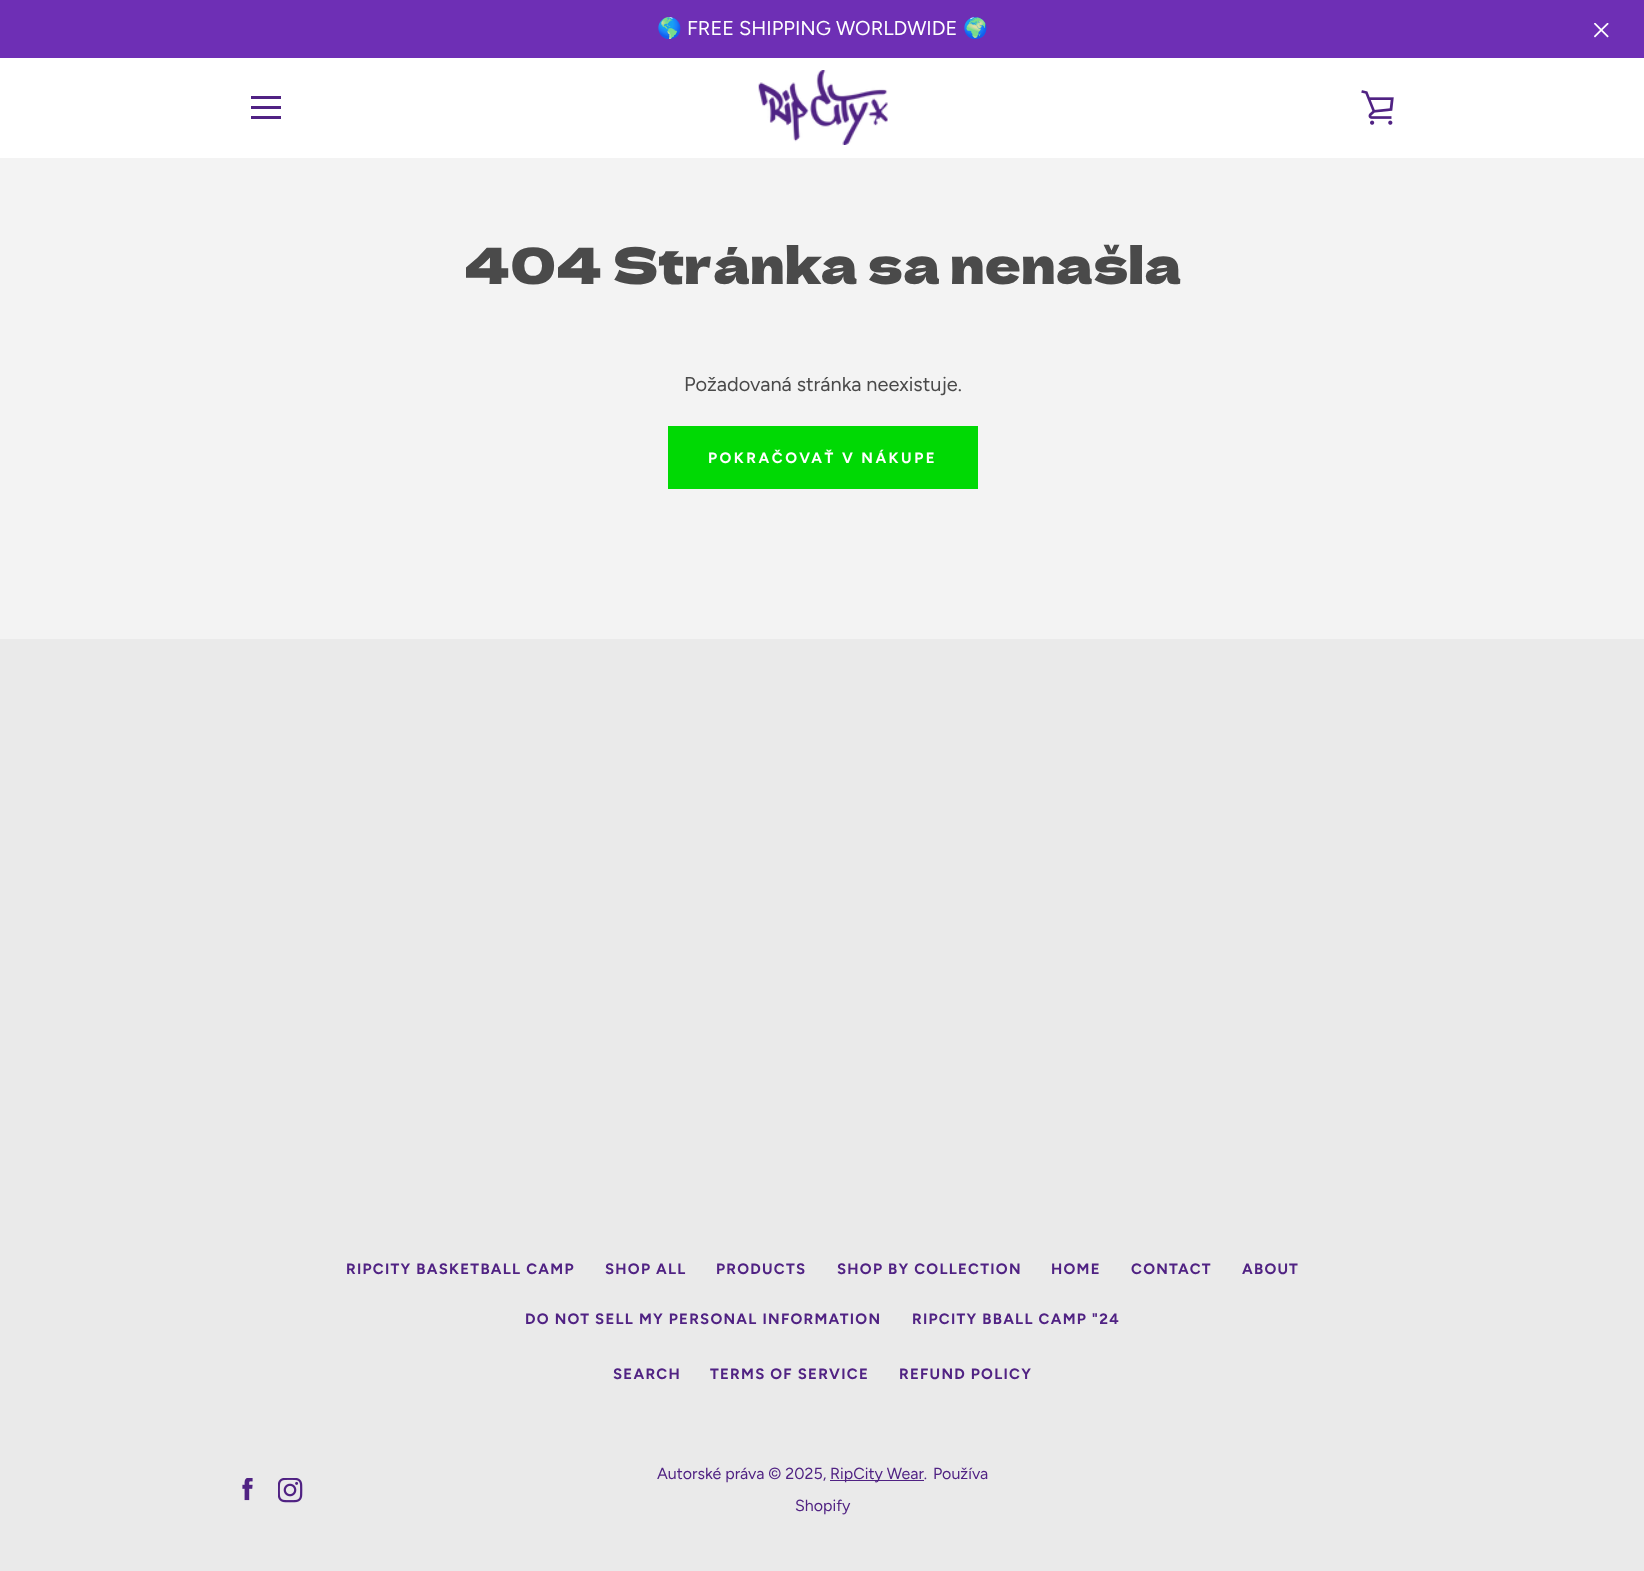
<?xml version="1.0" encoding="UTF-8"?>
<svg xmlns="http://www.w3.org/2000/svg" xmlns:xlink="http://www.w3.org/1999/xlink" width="1644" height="1571">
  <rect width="100%" height="100%" fill="#eaeaea" />
  <rect y="158" width="1644" height="481" fill="#f3f3f3" />
  <rect y="58" width="1644" height="100" fill="#ffffff" />
  <rect width="1644" height="58" fill="#6e2fb5" />
  <image x="1594" y="23" width="15" height="15" xlink:href="image1.png" />
  <rect x="251" y="96" width="30" height="3" fill="#502283" />
  <rect x="251" y="106" width="30" height="3" fill="#502283" />
  <rect x="251" y="116" width="30" height="3" fill="#502283" />
  <image x="758" y="70" width="130" height="75" xlink:href="image2.png" />
  <image x="1361" y="90" width="33" height="35" xlink:href="image3.png" />
  <rect x="668" y="426" width="310" height="63" fill="#00d904" />
  <image x="242" y="1478" width="11" height="23" xlink:href="image4.png" />
  <image x="278" y="1478" width="25" height="25" xlink:href="image5.png" />
  <rect x="830" y="1480" width="94" height="1" fill="#502283" />
  <text x="657" y="35" style="font-family: Noto Color Emoji; font-size: 20px; fill: #ffffff">🌎</text>
  <text x="687" y="35" style="font-family: Figtree; font-size: 20px; fill: #ffffff">FREE SHIPPING WORLDWIDE</text>
  <text x="963" y="35" style="font-family: Noto Color Emoji; font-size: 20px; fill: #ffffff">🌍</text>
  <text x="464" y="284" style="font-family: Dela Gothic One; font-size: 50px; fill: #4a4a4a">404 Stránka sa nenašla</text>
  <text x="684" y="391" style="font-family: Figtree; font-size: 20px; fill: #4a4a4a">Požadovaná stránka neexistuje.</text>
  <text x="708" y="463" style="font-family: Figtree; font-size: 15px; font-weight: bold; letter-spacing: 2.5px; fill: #ffffff">POKRAČOVAŤ V NÁKUPE</text>
  <text x="346" y="1274" style="font-family: Figtree; font-size: 15px; font-weight: bold; letter-spacing: 1.25px; fill: #502283">RIPCITY BASKETBALL CAMP</text>
  <text x="605" y="1274" style="font-family: Figtree; font-size: 15px; font-weight: bold; letter-spacing: 1.25px; fill: #502283">SHOP ALL</text>
  <text x="716" y="1274" style="font-family: Figtree; font-size: 15px; font-weight: bold; letter-spacing: 1.25px; fill: #502283">PRODUCTS</text>
  <text x="837" y="1274" style="font-family: Figtree; font-size: 15px; font-weight: bold; letter-spacing: 1.25px; fill: #502283">SHOP BY COLLECTION</text>
  <text x="1051" y="1274" style="font-family: Figtree; font-size: 15px; font-weight: bold; letter-spacing: 1.25px; fill: #502283">HOME</text>
  <text x="1131" y="1274" style="font-family: Figtree; font-size: 15px; font-weight: bold; letter-spacing: 1.25px; fill: #502283">CONTACT</text>
  <text x="1242" y="1274" style="font-family: Figtree; font-size: 15px; font-weight: bold; letter-spacing: 1.25px; fill: #502283">ABOUT</text>
  <text x="525" y="1324" style="font-family: Figtree; font-size: 15px; font-weight: bold; letter-spacing: 1.25px; fill: #502283">DO NOT SELL MY PERSONAL INFORMATION</text>
  <text x="912" y="1324" style="font-family: Figtree; font-size: 15px; font-weight: bold; letter-spacing: 1.25px; fill: #502283">RIPCITY BBALL CAMP "24</text>
  <text x="613" y="1379" style="font-family: Figtree; font-size: 15px; font-weight: bold; letter-spacing: 1.25px; fill: #502283">SEARCH</text>
  <text x="710" y="1379" style="font-family: Figtree; font-size: 15px; font-weight: bold; letter-spacing: 1.25px; fill: #502283">TERMS OF SERVICE</text>
  <text x="899" y="1379" style="font-family: Figtree; font-size: 15px; font-weight: bold; letter-spacing: 1.25px; fill: #502283">REFUND POLICY</text>
  <text x="657" y="1479" style="font-family: Figtree; font-size: 16px; fill: #502283">Autorské práva © 2025,</text>
  <text x="830" y="1479" style="font-family: Figtree; font-size: 16px; fill: #502283">RipCity Wear.</text>
  <text x="933" y="1479" style="font-family: Figtree; font-size: 16px; fill: #502283">Používa</text>
  <text x="795" y="1511" style="font-family: Figtree; font-size: 16px; fill: #502283">Shopify</text>
</svg>
